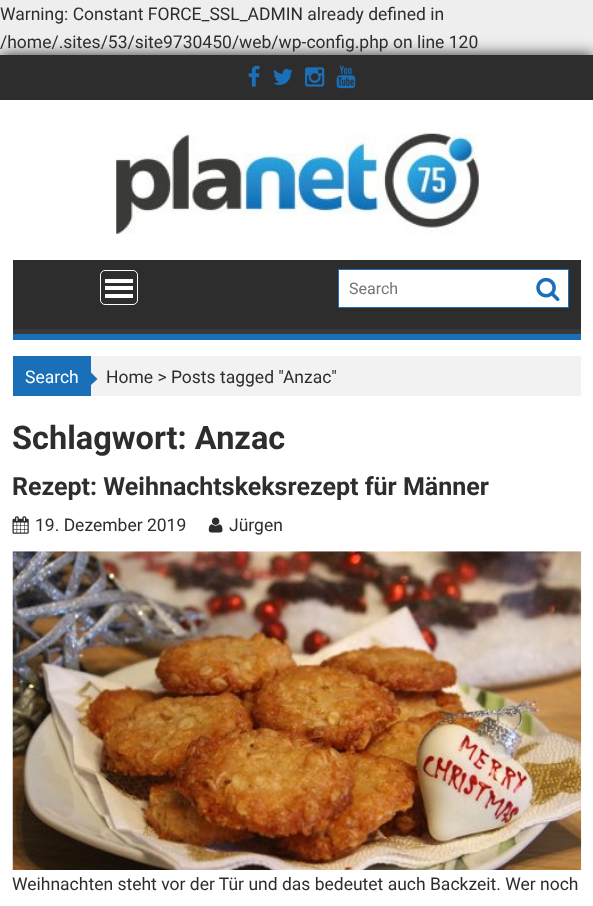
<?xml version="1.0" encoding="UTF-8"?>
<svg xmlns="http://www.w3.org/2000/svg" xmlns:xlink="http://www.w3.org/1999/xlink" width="593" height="906">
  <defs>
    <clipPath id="clip1"><rect x="13" y="260" width="568" height="74" /></clipPath>
  </defs>
  <rect width="100%" height="100%" fill="#eeeeef" />
  <rect y="55" width="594" height="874" fill="#2d2d2d" filter="blur(7.5px)" />
  <rect y="100" width="593" height="806" fill="#ffffff" />
  <rect y="55" width="593" height="45" fill="#2d2d2d" />
  <image x="248" y="65" width="12" height="22" xlink:href="image1.png" />
  <image x="273" y="68" width="20" height="17" xlink:href="image2.png" />
  <image x="305" y="67" width="20" height="20" xlink:href="image3.png" />
  <image x="336" y="65" width="20" height="24" xlink:href="image4.png" />
  <image x="116" y="133" width="363" height="101" xlink:href="image5.png" />
  <rect x="13" y="260" width="568" height="69" fill="#2d2d2d" />
  <g clip-path="url(#clip1)">
    <path d="M -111 136 h 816 v 322 h -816 z m 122 116 h 569 c 1 0 1 1 1 2 v 74 c 0 0 0 1 -1 1 h -569 c 0 0 -1 -1 -1 -1 v -74 c 0 -1 1 -2 1 -2 z" fill="#393939" fill-rule="evenodd" />
  </g>
  <rect x="13" y="334" width="568" height="6" fill="#1a70b8" />
  <rect x="100.5" y="270.5" width="37" height="34" rx="4.5" fill="none" stroke="#ffffff" />
  <rect x="105" y="294" width="28" height="4" fill="#ffffff" />
  <rect x="105" y="286" width="28" height="4" fill="#ffffff" />
  <rect x="105" y="279" width="28" height="4" fill="#ffffff" />
  <rect x="338.5" y="269.5" width="230" height="38" fill="#ffffff" stroke="#1a70b8" />
  <image x="536" y="277" width="24" height="25" xlink:href="image6.png" />
  <rect x="91" y="356" width="490" height="40" fill="#f2f2f2" />
  <rect x="13" y="356" width="78" height="40" fill="#1a70b8" />
  <path d="M 91 385 v -12.5 l 6.5 6.5 z" fill="#1a70b8" />
  <image x="12" y="516" width="17" height="18" xlink:href="image7.png" />
  <image x="208" y="517" width="15" height="16" xlink:href="image8.png" />
  <image x="12" y="551" width="570" height="319" xlink:href="image9.png" />
  <text x="0" y="20" style="font-family: Roboto; font-size: 17.5px; fill: #2d2d2d">Warning: Constant FORCE_SSL_ADMIN already defined in</text>
  <text x="0" y="48" style="font-family: Roboto; font-size: 17.5px; fill: #2d2d2d">/home/.sites/53/site9730450/web/wp-config.php on line 120</text>
  <text x="349" y="294" style="font-family: Roboto; font-size: 16px; fill: #757575">Search</text>
  <text x="25" y="383" style="font-family: Roboto; font-size: 17.5px; fill: #ffffff">Search</text>
  <text x="106" y="383" style="font-family: Roboto; font-size: 17.5px; fill: #2d2d2d">Home &gt; Posts tagged "Anzac"</text>
  <text x="12" y="449" style="font-family: Roboto; font-size: 32.5px; font-weight: bold; fill: #2d2d2d">Schlagwort: Anzac</text>
  <text x="12" y="495" style="font-family: Roboto; font-size: 25px; font-weight: bold; fill: #2d2d2d">Rezept: Weihnachtskeksrezept für Männer</text>
  <text x="35" y="531" style="font-family: Roboto; font-size: 17.5px; fill: #2d2d2d">19. Dezember 2019</text>
  <text x="229" y="531" style="font-family: Roboto; font-size: 17.5px; fill: #2d2d2d">Jürgen</text>
  <text x="12" y="890" style="font-family: Roboto; font-size: 17.5px; fill: #2d2d2d">Weihnachten steht vor der Tür und das bedeutet auch Backzeit. Wer noch</text>
</svg>
